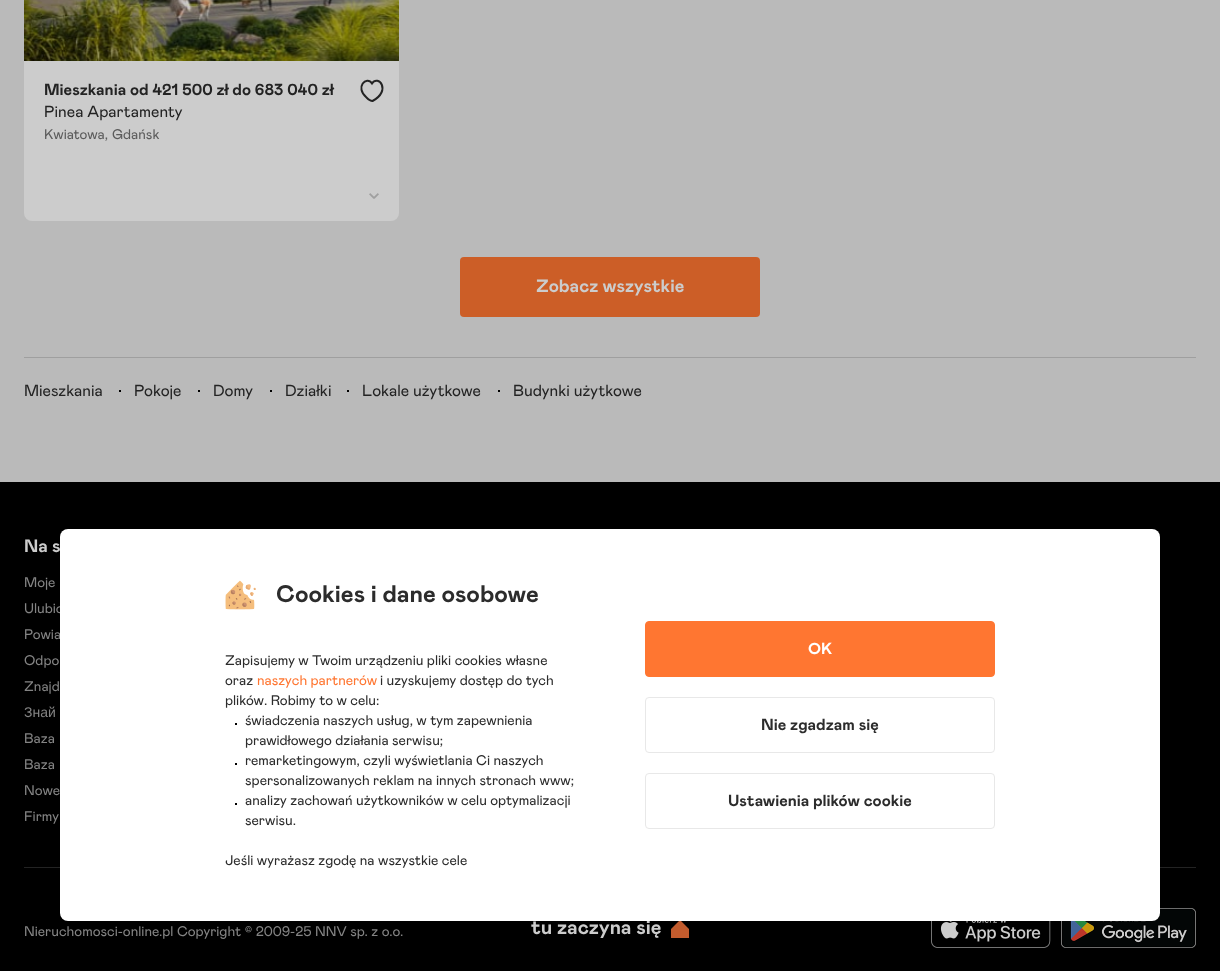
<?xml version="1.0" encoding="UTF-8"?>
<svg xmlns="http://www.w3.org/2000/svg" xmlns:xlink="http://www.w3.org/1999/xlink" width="1220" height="971">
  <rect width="100%" height="100%" fill="#bababa" />
  <rect x="24" y="-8" width="375" height="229" rx="8" fill="#cccccc" />
  <image x="24" y="0" width="375" height="61" xlink:href="image1.png" />
  <path d="M 372.5 101 c -2 0 -4.5 -2 -6 -3.5 c -12 -10 0 -22.5 5.5 -14 c 6 -9.5 20 7 0.5 17.5 z" fill="none" stroke="#232323" stroke-width="2" />
  <image x="369" y="193" width="10" height="6" xlink:href="image2.png" />
  <rect x="460" y="257" width="300" height="60" rx="4" fill="#cc5e27" />
  <rect x="24" y="357" width="1172" height="1" fill="#9f9f9f" />
  <rect x="119" y="390" width="2" height="2" fill="#000000" />
  <rect x="198" y="390" width="2" height="2" fill="#000000" />
  <rect x="270" y="390" width="2" height="2" fill="#000000" />
  <rect x="347" y="390" width="2" height="2" fill="#000000" />
  <rect x="498" y="390" width="2" height="2" fill="#000000" />
  <rect y="482" width="1220" height="489" fill="#000000" />
  <rect x="24" y="867" width="1172" height="1" fill="#232323" />
  <path d="M 680 920 l -9 9 v 9 h 18 v -9 z" fill="#c25b2d" fill-rule="evenodd" />
  <image x="931" y="921" width="120" height="27" xlink:href="image3.png" />
  <image x="1061" y="908" width="135" height="40" xlink:href="image4.png" />
  <text x="44" y="95" style="font-family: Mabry; font-size: 16px; font-weight: bold; fill: #232323">Mieszkania od 421 500 zł do 683 040 zł</text>
  <text x="44" y="117" style="font-family: Mabry; font-size: 16px; fill: #232323">Pinea Apartamenty</text>
  <text x="44" y="139" style="font-family: Mabry; font-size: 14px; fill: #5b5b5b">Kwiatowa,</text>
  <text x="112" y="139" style="font-family: Mabry; font-size: 14px; fill: #5b5b5b">Gdańsk</text>
  <text x="536" y="292" style="font-family: Mabry; font-size: 18px; font-weight: bold; fill: #cccccc">Zobacz wszystkie</text>
  <text x="24" y="396" style="font-family: Mabry; font-size: 16px; fill: #232323">Mieszkania</text>
  <text x="134" y="396" style="font-family: Mabry; font-size: 16px; fill: #232323">Pokoje</text>
  <text x="213" y="396" style="font-family: Mabry; font-size: 16px; fill: #232323">Domy</text>
  <text x="285" y="396" style="font-family: Mabry; font-size: 16px; fill: #232323">Działki</text>
  <text x="362" y="396" style="font-family: Mabry; font-size: 16px; fill: #232323">Lokale użytkowe</text>
  <text x="513" y="396" style="font-family: Mabry; font-size: 16px; fill: #232323">Budynki użytkowe</text>
  <text x="24" y="552" style="font-family: Mabry; font-size: 18px; font-weight: bold; fill: #cccccc">Na s</text>
  <text x="24" y="587" style="font-family: Mabry; font-size: 14px; fill: #848484">Moje</text>
  <text x="24" y="613" style="font-family: Mabry; font-size: 14px; fill: #848484">Ulubio</text>
  <text x="24" y="639" style="font-family: Mabry; font-size: 14px; fill: #848484">Powia</text>
  <text x="24" y="665" style="font-family: Mabry; font-size: 14px; fill: #848484">Odpo</text>
  <text x="24" y="691" style="font-family: Mabry; font-size: 14px; fill: #848484">Znajd</text>
  <text x="24" y="717" style="font-family: Liberation Sans; font-size: 14px; fill: #848484">Знай</text>
  <text x="24" y="743" style="font-family: Mabry; font-size: 14px; fill: #848484">Baza</text>
  <text x="24" y="769" style="font-family: Mabry; font-size: 14px; fill: #848484">Baza</text>
  <text x="24" y="795" style="font-family: Mabry; font-size: 14px; fill: #848484">Nowe</text>
  <text x="24" y="821" style="font-family: Mabry; font-size: 14px; fill: #848484">Firmy</text>
  <text x="24" y="936" style="font-family: Mabry; font-size: 14px; fill: #848484">Nieruchomosci-online.pl Copyright © 2009-25 NNV sp. z o.o.</text>
  <text x="531" y="934" style="font-family: Mabry; font-size: 20px; font-weight: bold; fill: #cccccc">tu zaczyna się</text>
  <rect x="60" y="529" width="1100" height="392" rx="8" fill="#ffffff" />
  <image x="225" y="580" width="31" height="30" xlink:href="image5.png" />
  <text x="276" y="602" style="font-family: Mabry; font-size: 24px; font-weight: bold; fill: #2c2c2c">Cookies i dane osobowe</text>
  <text x="225" y="665" style="font-family: Mabry; font-size: 14px; fill: #2c2c2c">Zapisujemy w Twoim urządzeniu pliki cookies własne</text>
  <text x="225" y="685" style="font-family: Mabry; font-size: 14px; fill: #2c2c2c">oraz</text>
  <text x="257" y="685" style="font-family: Mabry; font-size: 14px; fill: #ff7631">naszych partnerów</text>
  <text x="380" y="685" style="font-family: Mabry; font-size: 14px; fill: #2c2c2c">i uzyskujemy dostęp do tych</text>
  <text x="225" y="705" style="font-family: Mabry; font-size: 14px; fill: #2c2c2c">plików. Robimy to w celu:</text>
  <rect x="235" y="723" width="2" height="2" fill="#000000" />
  <text x="245" y="725" style="font-family: Mabry; font-size: 14px; fill: #2c2c2c">świadczenia naszych usług, w tym zapewnienia</text>
  <text x="245" y="745" style="font-family: Mabry; font-size: 14px; fill: #2c2c2c">prawidłowego działania serwisu;</text>
  <rect x="235" y="763" width="2" height="2" fill="#000000" />
  <text x="245" y="765" style="font-family: Mabry; font-size: 14px; fill: #2c2c2c">remarketingowym, czyli wyświetlania Ci naszych</text>
  <text x="245" y="785" style="font-family: Mabry; font-size: 14px; fill: #2c2c2c">spersonalizowanych reklam na innych stronach www;</text>
  <rect x="235" y="803" width="2" height="2" fill="#000000" />
  <text x="245" y="805" style="font-family: Mabry; font-size: 14px; fill: #2c2c2c">analizy zachowań użytkowników w celu optymalizacji</text>
  <text x="245" y="825" style="font-family: Mabry; font-size: 14px; fill: #2c2c2c">serwisu.</text>
  <text x="225" y="865" style="font-family: Mabry; font-size: 14px; fill: #2c2c2c">Jeśli wyrażasz zgodę na wszystkie cele</text>
  <rect x="645.5" y="621.5" width="349" height="55" rx="3.5" fill="#ff7631" stroke="#ff7631" />
  <text x="808" y="654" style="font-family: Mabry; font-size: 16px; font-weight: bold; fill: #ffffff">OK</text>
  <rect x="645.5" y="697.5" width="349" height="55" rx="3.5" fill="none" stroke="#e8e8e8" />
  <text x="761" y="730" style="font-family: Mabry; font-size: 16px; font-weight: bold; fill: #2c2c2c">Nie zgadzam się</text>
  <rect x="645.5" y="773.5" width="349" height="55" rx="3.5" fill="none" stroke="#e8e8e8" />
  <text x="728" y="806" style="font-family: Mabry; font-size: 16px; font-weight: bold; fill: #2c2c2c">Ustawienia plików cookie</text>
</svg>
